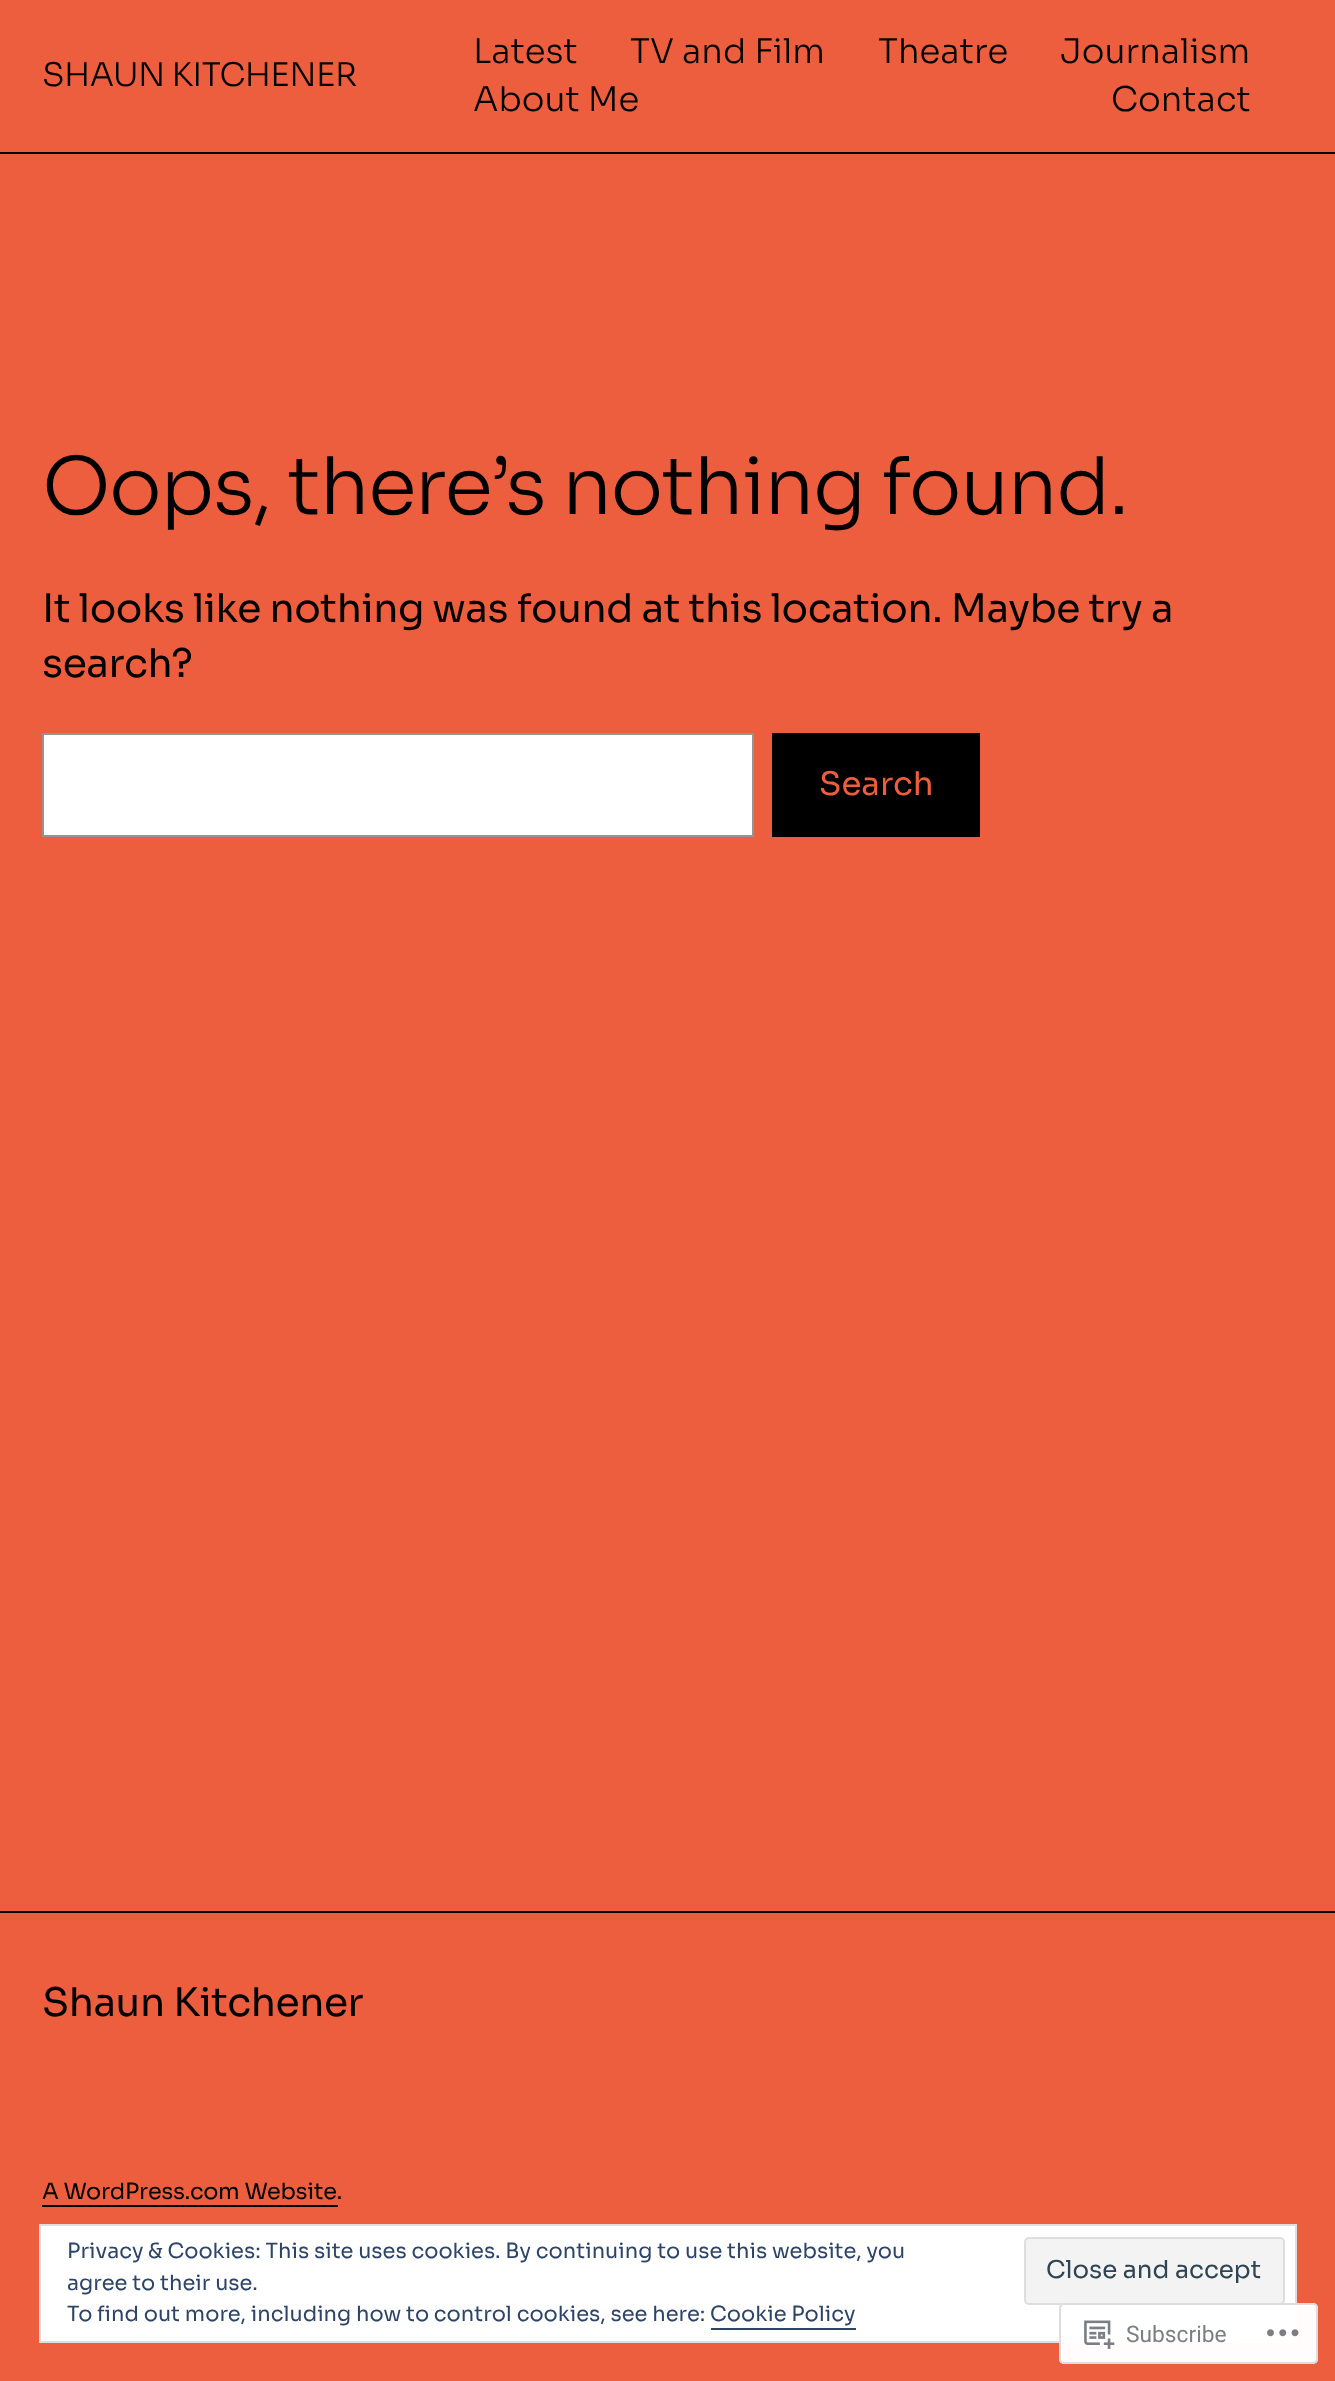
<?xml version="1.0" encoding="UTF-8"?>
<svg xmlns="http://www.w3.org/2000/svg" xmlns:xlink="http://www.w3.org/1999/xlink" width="1335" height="2381">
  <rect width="100%" height="100%" fill="#ec5e3e" />
  <rect y="152" width="1335" height="2" fill="#000000" />
  <rect x="43" y="734" width="710" height="102" fill="#ffffff" stroke="#949494" stroke-width="2" />
  <rect x="772" y="733" width="208" height="104" fill="#000000" />
  <rect y="1911" width="1335" height="2" fill="#000000" />
  <rect x="42" y="2205" width="296" height="2" fill="#000000" />
  <rect x="40" y="2225" width="1256" height="117" fill="#ffffff" stroke="#dedede" stroke-width="2" />
  <rect x="1025" y="2238" width="259" height="66" rx="4" fill="#f3f3f3" stroke="#dedede" stroke-width="2" />
  <rect x="711" y="2328" width="145" height="2" fill="#2e4467" />
  <rect x="1059" y="2303" width="259" height="61" rx="5" fill="#ffffff" fill-opacity="0.98" />
  <rect x="1060" y="2304" width="257" height="59" rx="4" fill="none" stroke="#dcdcde" stroke-opacity="0.98" stroke-width="2" />
  <image x="1084" y="2320" width="31" height="29" xlink:href="image1.png" />
  <image x="1267" y="2329" width="32" height="8" xlink:href="image2.png" />
  <text x="42" y="86" style="font-family: Sora; font-size: 32.5px; font-weight: 300; letter-spacing: -0.6px; fill: #000000">SHAUN KITCHENER</text>
  <text x="473" y="63" style="font-family: Sora; font-size: 34px; font-weight: 300; fill: #000000">Latest</text>
  <text x="630" y="63" style="font-family: Sora; font-size: 34px; font-weight: 300; fill: #000000">TV and Film</text>
  <text x="878" y="63" style="font-family: Sora; font-size: 34px; font-weight: 300; fill: #000000">Theatre</text>
  <text x="1060" y="63" style="font-family: Sora; font-size: 34px; font-weight: 300; fill: #000000">Journalism</text>
  <text x="473" y="111" style="font-family: Sora; font-size: 34px; font-weight: 300; fill: #000000">About Me</text>
  <text x="1111" y="111" style="font-family: Sora; font-size: 34px; font-weight: 300; fill: #000000">Contact</text>
  <text x="42" y="514" style="font-family: Sora; font-size: 79.1px; font-weight: 300; letter-spacing: -1.6px; fill: #000000">Oops, there’s nothing found.</text>
  <text x="42" y="622" style="font-family: Sora; font-size: 39.3px; letter-spacing: -0.4px; fill: #000000">It looks like nothing was found at this location. Maybe try a</text>
  <text x="42" y="677" style="font-family: Sora; font-size: 39.3px; letter-spacing: -0.4px; fill: #000000">search?</text>
  <text x="819" y="795" style="font-family: Sora; font-size: 32.5px; fill: #ec5e3e">Search</text>
  <text x="42" y="2016" style="font-family: Sora; font-size: 39.3px; letter-spacing: -0.4px; fill: #000000">Shaun Kitchener</text>
  <text x="42" y="2199" style="font-family: Sora; font-size: 22.4px; letter-spacing: -0.25px; fill: #000000">A WordPress.com Website.</text>
  <text x="67" y="2258" style="font-family: Sora; font-size: 21px; fill: #2e4467">Privacy &amp; Cookies: This site uses cookies. By continuing to use this website, you</text>
  <text x="67" y="2290" style="font-family: Sora; font-size: 21px; fill: #2e4467">agree to their use.</text>
  <text x="1046" y="2278" style="font-family: Sora; font-size: 24.5px; fill: #2e4453">Close and accept</text>
  <text x="67" y="2321" style="font-family: Sora; font-size: 21px; fill: #2e4467">To find out more, including how to control cookies, see here: Cookie Policy</text>
  <text x="1126" y="2342" style="font-family: Roboto; font-size: 22.75px; fill: #7b7f84">Subscribe</text>
</svg>
